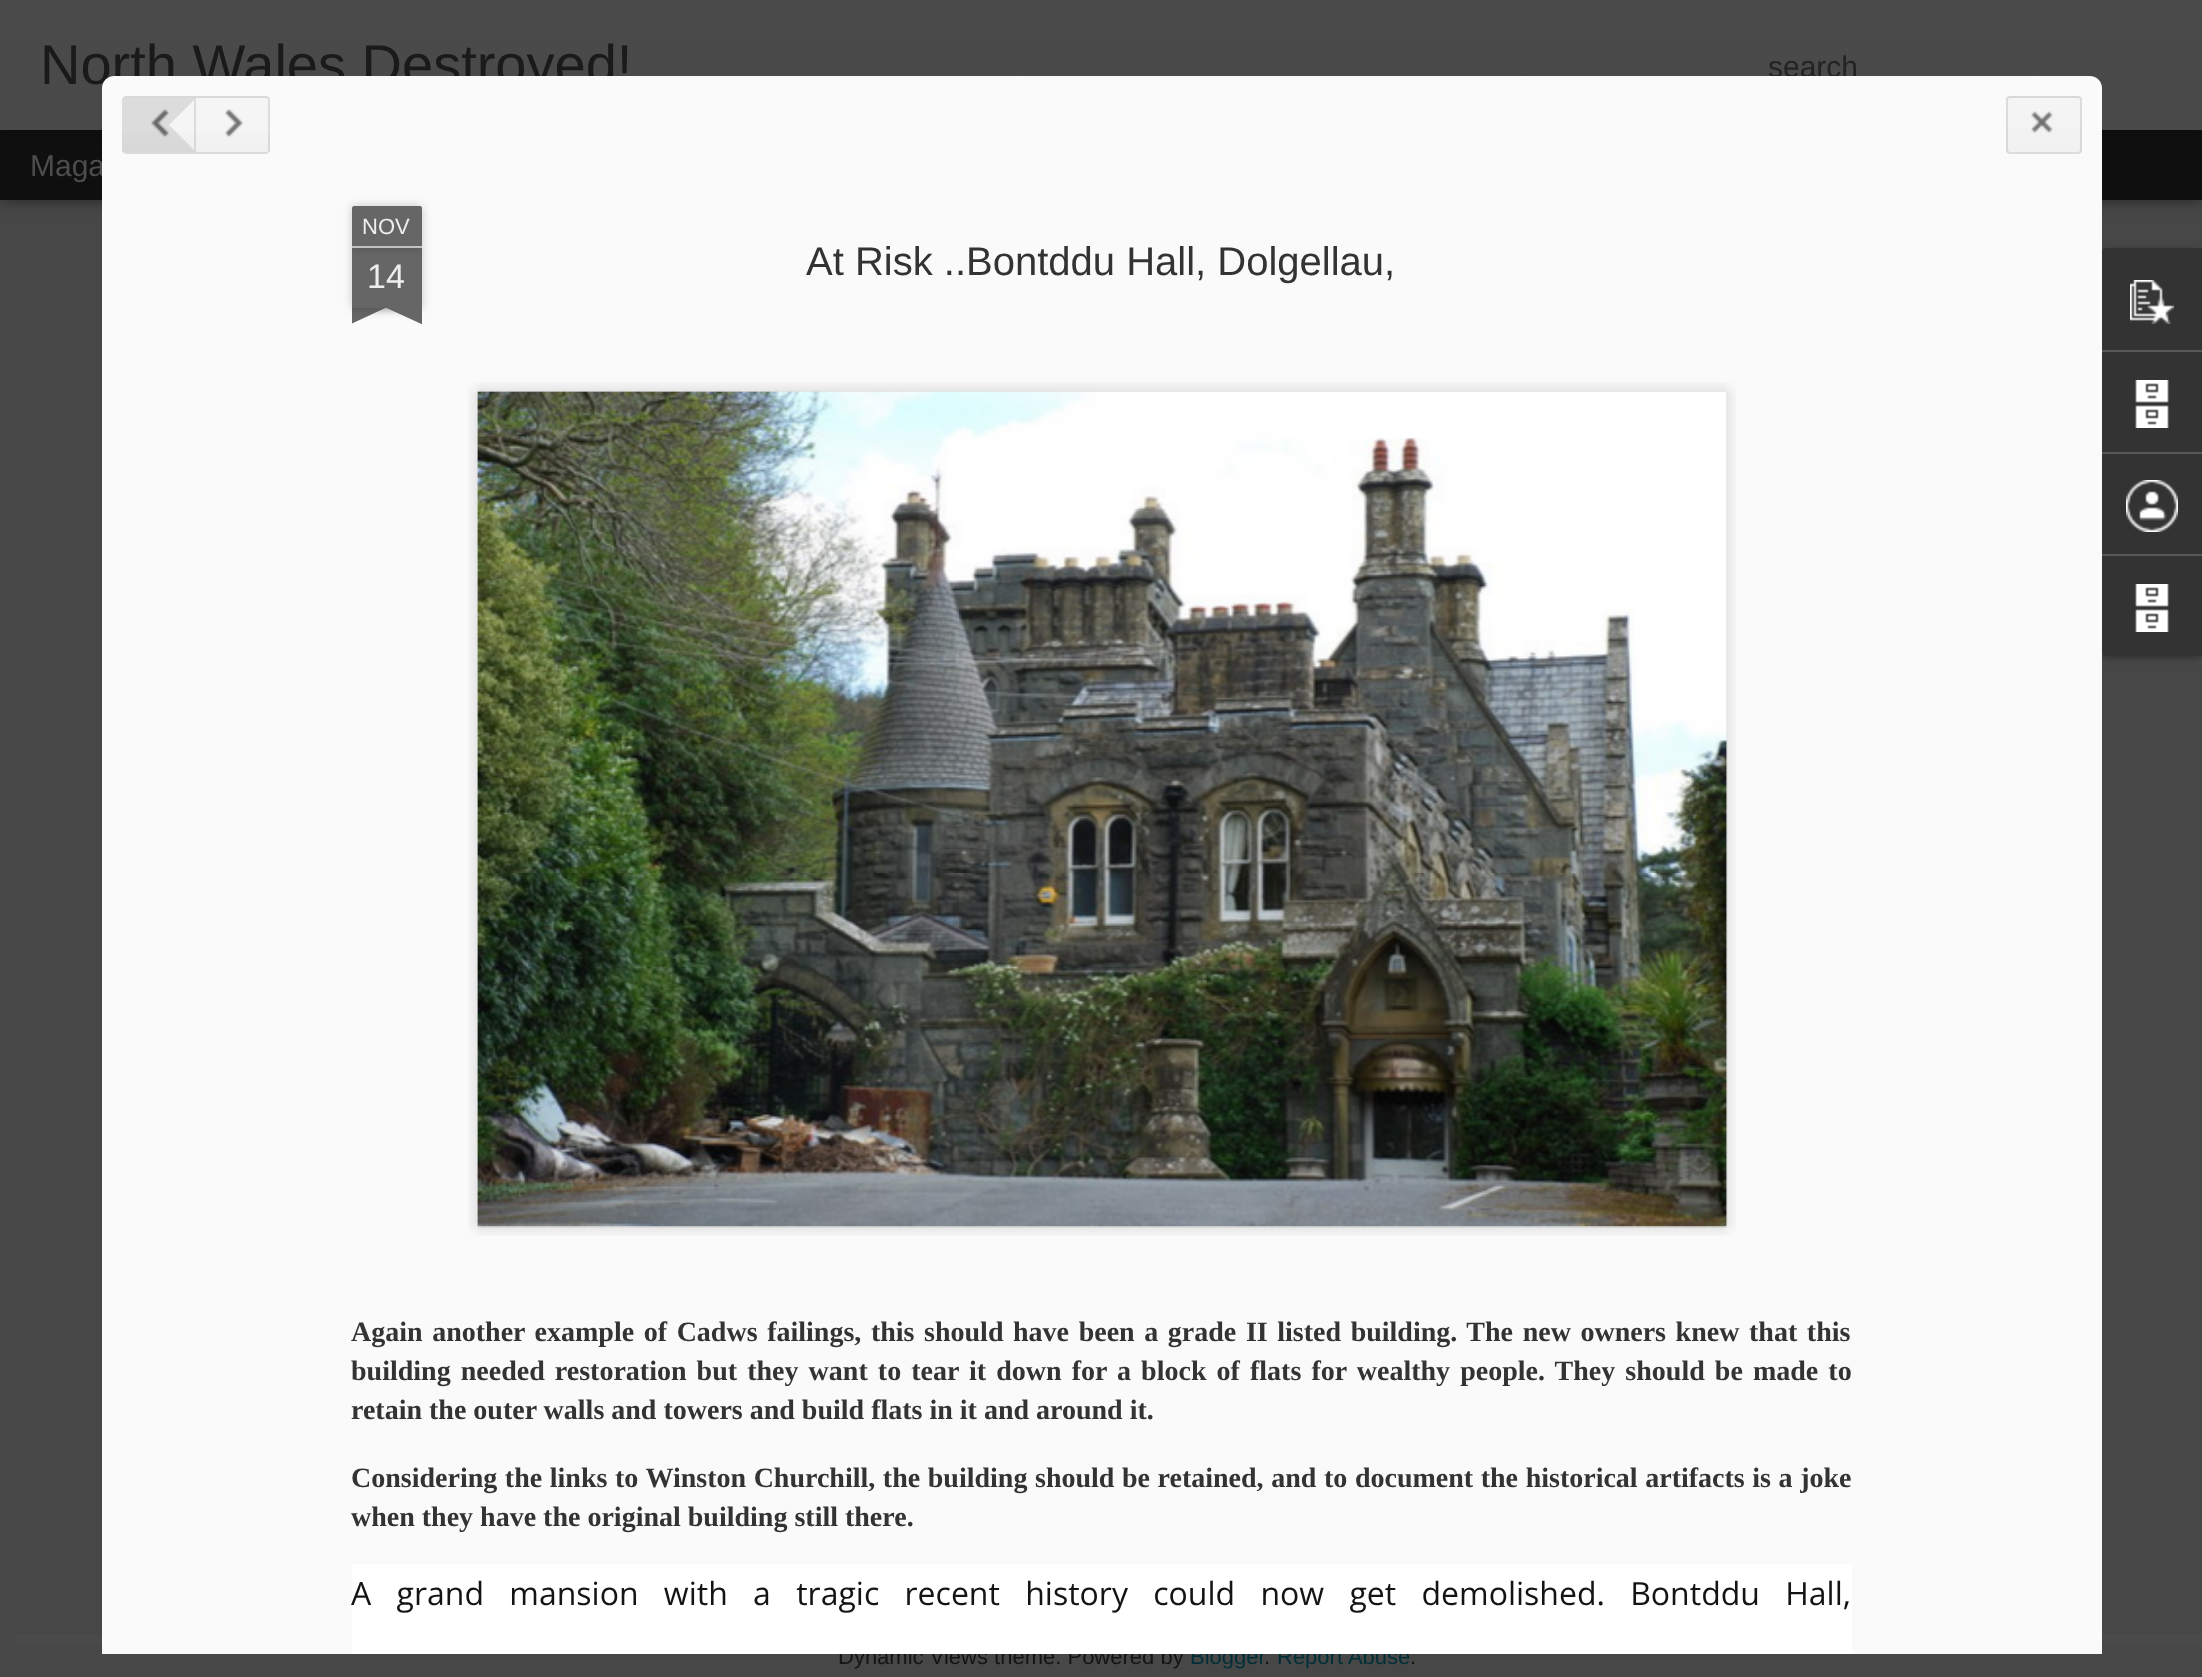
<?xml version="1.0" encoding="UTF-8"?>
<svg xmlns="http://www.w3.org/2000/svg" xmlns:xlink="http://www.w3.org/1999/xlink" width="2202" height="1677">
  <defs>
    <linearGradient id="g1" gradientUnits="userSpaceOnUse" x1="0" y1="0" x2="0" y2="130"><stop offset="0" stop-color="#4a4a4a" /><stop offset="1" stop-color="#494949" /></linearGradient>
    <linearGradient id="g2" gradientUnits="userSpaceOnUse" x1="1127" y1="1634" x2="1127" y2="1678"><stop offset="0" stop-color="#4a4a4a" /><stop offset="1" stop-color="#484848" /></linearGradient>
    <clipPath id="clip1"><rect x="2006" y="96" width="76" height="58" rx="4" /></clipPath>
    <linearGradient id="g3" gradientUnits="userSpaceOnUse" x1="2044" y1="98" x2="2044" y2="152"><stop offset="0" stop-color="#f5f5f5" /><stop offset="1" stop-color="#f1f1f1" /></linearGradient>
    <linearGradient id="g4" gradientUnits="userSpaceOnUse" x1="2044" y1="44" x2="2044" y2="98"><stop offset="0" stop-color="#f5f5f5" /><stop offset="1" stop-color="#f1f1f1" /></linearGradient>
    <linearGradient id="g5" gradientUnits="userSpaceOnUse" x1="160" y1="98" x2="160" y2="152"><stop offset="0" stop-color="#f5f5f5" /><stop offset="1" stop-color="#f1f1f1" /></linearGradient>
    <clipPath id="clip2"><path d="M 126 96 h 72 v 58 h -72 c -2 0 -4 -2 -4 -4 v -50 c 0 -2 2 -4 4 -4 z" /></clipPath>
    <linearGradient id="g6" gradientUnits="userSpaceOnUse" x1="160" y1="44" x2="160" y2="98"><stop offset="0" stop-color="#f5f5f5" /><stop offset="1" stop-color="#f1f1f1" /></linearGradient>
    <linearGradient id="g7" gradientUnits="userSpaceOnUse" x1="232" y1="98" x2="232" y2="152"><stop offset="0" stop-color="#f5f5f5" /><stop offset="1" stop-color="#f1f1f1" /></linearGradient>
    <clipPath id="clip3"><path d="M 194 96 h 72 c 2 0 4 2 4 4 v 50 c 0 2 -2 4 -4 4 h -72 z" /></clipPath>
    <linearGradient id="g8" gradientUnits="userSpaceOnUse" x1="232" y1="44" x2="232" y2="98"><stop offset="0" stop-color="#f5f5f5" /><stop offset="1" stop-color="#f1f1f1" /></linearGradient>
    <clipPath id="clip4"><rect x="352" y="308" width="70" height="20" /></clipPath>
    <clipPath id="clip5"><rect x="352" y="308" width="70" height="20" /></clipPath>
  </defs>
  <rect width="100%" height="100%" fill="#474747" />
  <rect y="130" width="2202" height="70" fill="#000000" fill-opacity="0.5" filter="blur(8px)" />
  <rect y="130" width="2202" height="70" fill="#0f0f0f" />
  <rect width="2202" height="130" fill="#000000" fill-opacity="0.3" filter="blur(5px)" />
  <rect width="2202" height="130" fill="url(#g1)" />
  <rect x="2102" y="250" width="100" height="408" rx="4" fill="#000000" fill-opacity="0.3" filter="blur(3px)" />
  <path d="M 2106 248 h 96 v 408 h -96 c -2 0 -4 -2 -4 -4 v -400 c 0 -2 2 -4 4 -4 z" fill="#333333" />
  <path d="M 2106 248 h 96 v 102 h -100 v -98 c 0 -2 2 -4 4 -4 z" fill="#333333" />
  <image x="2130" y="280" width="44" height="44" xlink:href="image6.png" />
  <rect x="2102" y="350" width="100" height="2" fill="#585858" />
  <image x="2135" y="380" width="34" height="48" xlink:href="image7.png" />
  <rect x="2102" y="452" width="100" height="2" fill="#585858" />
  <image x="2126" y="480" width="52" height="52" xlink:href="image8.png" />
  <rect x="2102" y="554" width="100" height="2" fill="#585858" />
  <image x="2135" y="584" width="34" height="48" xlink:href="image7.png" />
  <rect x="16" y="1634" width="2186" height="11" fill="url(#g2)" />
  <text x="40" y="84" style="font-family: Liberation Sans; font-size: 56px; fill: #1a1a1a">North Wales Destroyed!</text>
  <text x="1768" y="77" style="font-family: Liberation Sans; font-size: 30px; fill: #232323">search</text>
  <text x="30" y="176" style="font-family: Liberation Sans; font-size: 30px; fill: #4d4d4d">Maga</text>
  <text x="838" y="1664" style="font-family: Liberation Sans; font-size: 22px; fill: #141414">Dynamic Views theme. Powered by</text>
  <text x="1190" y="1664" style="font-family: Liberation Sans; font-size: 22px; fill: #002f37">Blogger</text>
  <text x="1264" y="1664" style="font-family: Liberation Sans; font-size: 22px; fill: #141414">.</text>
  <text x="1277" y="1664" style="font-family: Liberation Sans; font-size: 22px; fill: #002f37">Report Abuse</text>
  <path d="M 114 76 h 1976 c 6.5 0 12 5.5 12 12 v 1566 h -2000 v -1566 c 0 -6.5 5.5 -12 12 -12 z" fill="#fafafa" />
  <rect x="2006" y="96" width="76" height="58" rx="4" fill="#f5f5f5" />
  <g clip-path="url(#clip1)">
    <rect x="2006" y="98" width="76" height="54" fill="url(#g3)" />
    <rect x="2006" y="96" width="76" height="2" fill="url(#g4)" />
  </g>
  <rect x="2007" y="97" width="74" height="56" rx="3" fill="none" stroke="#000000" stroke-opacity="0.1" stroke-width="2" />
  <image x="2031" y="111" width="22" height="22" xlink:href="image3.png" />
  <path d="M 126 96 h 72 v 58 h -72 c -2 0 -4 -2 -4 -4 v -50 c 0 -2 2 -4 4 -4 z" fill="#f5f5f5" />
  <rect x="122" y="132" width="72" height="20" fill="url(#g5)" />
  <path d="M 198 154 h -72 l -3 -1 l 28 -28 h 18 z" fill="#000000" fill-opacity="0.1" />
  <g clip-path="url(#clip2)">
    <rect x="122" y="96" width="76" height="2" fill="url(#g6)" />
  </g>
  <path d="M 126 96 h 72 l -29 29 h -18 l -28 -28 z" fill="#000000" fill-opacity="0.1" />
  <path d="M 194 96 h 72 c 2 0 4 2 4 4 v 50 c 0 2 -2 4 -4 4 h -72 z" fill="#f5f5f5" />
  <rect x="194" y="132" width="76" height="20" fill="url(#g7)" />
  <g clip-path="url(#clip3)">
    <rect x="194" y="96" width="76" height="2" fill="url(#g8)" />
  </g>
  <path d="M 195 97 h 71 c 1.5 0 3 1.5 3 3 v 50 c 0 1.5 -1.5 3 -3 3 h -71 z" fill="none" stroke="#000000" stroke-opacity="0.1" stroke-width="2" />
  <image x="225" y="109" width="18" height="28" xlink:href="image2.png" />
  <image x="151" y="109" width="18" height="28" xlink:href="image1.png" />
  <path d="M 123 153 l 28 -28 l -28 -28 l -1 3 v 50 z" fill="#000000" fill-opacity="0.1" />
  <image x="468" y="382" width="1268" height="854" xlink:href="image4.png" />
  <image x="477" y="391" width="1251" height="837" xlink:href="image5.png" />
  <text x="806" y="275" style="font-family: Liberation Sans; font-size: 40px; fill: #333333">At Risk ..Bontddu Hall, Dolgellau,</text>
  <rect x="352" y="248" width="70" height="60" fill="#000000" fill-opacity="0.2" filter="blur(5px)" />
  <rect x="352" y="248" width="70" height="60" fill="#666666" />
  <g clip-path="url(#clip4)">
    <rect x="334" y="288" width="100" height="20" fill="#000000" fill-opacity="0.2" filter="blur(5px)" />
  </g>
  <g clip-path="url(#clip5)">
    <path d="M 333 310 l 91 -42 l 9 18 l -91 42 z" fill="#666666" />
  </g>
  <g clip-path="url(#clip4)">
    <rect x="340" y="288" width="100" height="20" fill="#000000" fill-opacity="0.2" filter="blur(5px)" />
  </g>
  <g clip-path="url(#clip5)">
    <path d="M 348 268 l 91 42 l -9 18 l -91 -42 z" fill="#666666" />
  </g>
  <rect x="352" y="206" width="70" height="42" rx="2" fill="#000000" fill-opacity="0.2" filter="blur(5px)" />
  <path d="M 354 206 h 66 c 1 0 2 1 2 2 v 40 h -70 v -40 c 0 -1 1 -2 2 -2 z" fill="#666666" />
  <text x="362" y="234" style="font-family: Liberation Sans; font-size: 22px; fill: #eeeeee">NOV</text>
  <rect x="352" y="246" width="70" height="2" fill="#c2c2c2" />
  <text x="367" y="288" style="font-family: Liberation Sans; font-size: 34px; fill: #eeeeee">14</text>
  <rect x="352" y="1564" width="1500" height="90" fill="#ffffff" />
  <text x="351" y="1605" word-spacing="17" style="font-family: Open Sans; font-size: 32px; fill: #141414">A grand mansion with a tragic recent history could now get demolished. Bontddu Hall,</text>
  <text x="351" y="1526" style="font-family: Liberation Serif; font-size: 28px; font-weight: bold; fill: #333333">when they have the original building still there.</text>
  <text x="351" y="1487" word-spacing="0.6" style="font-family: Liberation Serif; font-size: 28px; font-weight: bold; fill: #333333">Considering the links to Winston Churchill, the building should be retained, and to document the historical artifacts is a joke</text>
  <text x="351" y="1419" style="font-family: Liberation Serif; font-size: 28px; font-weight: bold; fill: #333333">retain the outer walls and towers and build flats in it and around it.</text>
  <text x="351" y="1380" word-spacing="3.1" style="font-family: Liberation Serif; font-size: 28px; font-weight: bold; fill: #333333">building needed restoration but they want to tear it down for a block of flats for wealthy people. They should be made to</text>
  <text x="351" y="1341" word-spacing="2.6" style="font-family: Liberation Serif; font-size: 28px; font-weight: bold; fill: #333333">Again another example of Cadws failings, this should have been a grade II listed building. The new owners knew that this</text>
  <text x="1410" y="1664" style="font-family: Liberation Sans; font-size: 22px; fill: #141414">.</text>
</svg>
